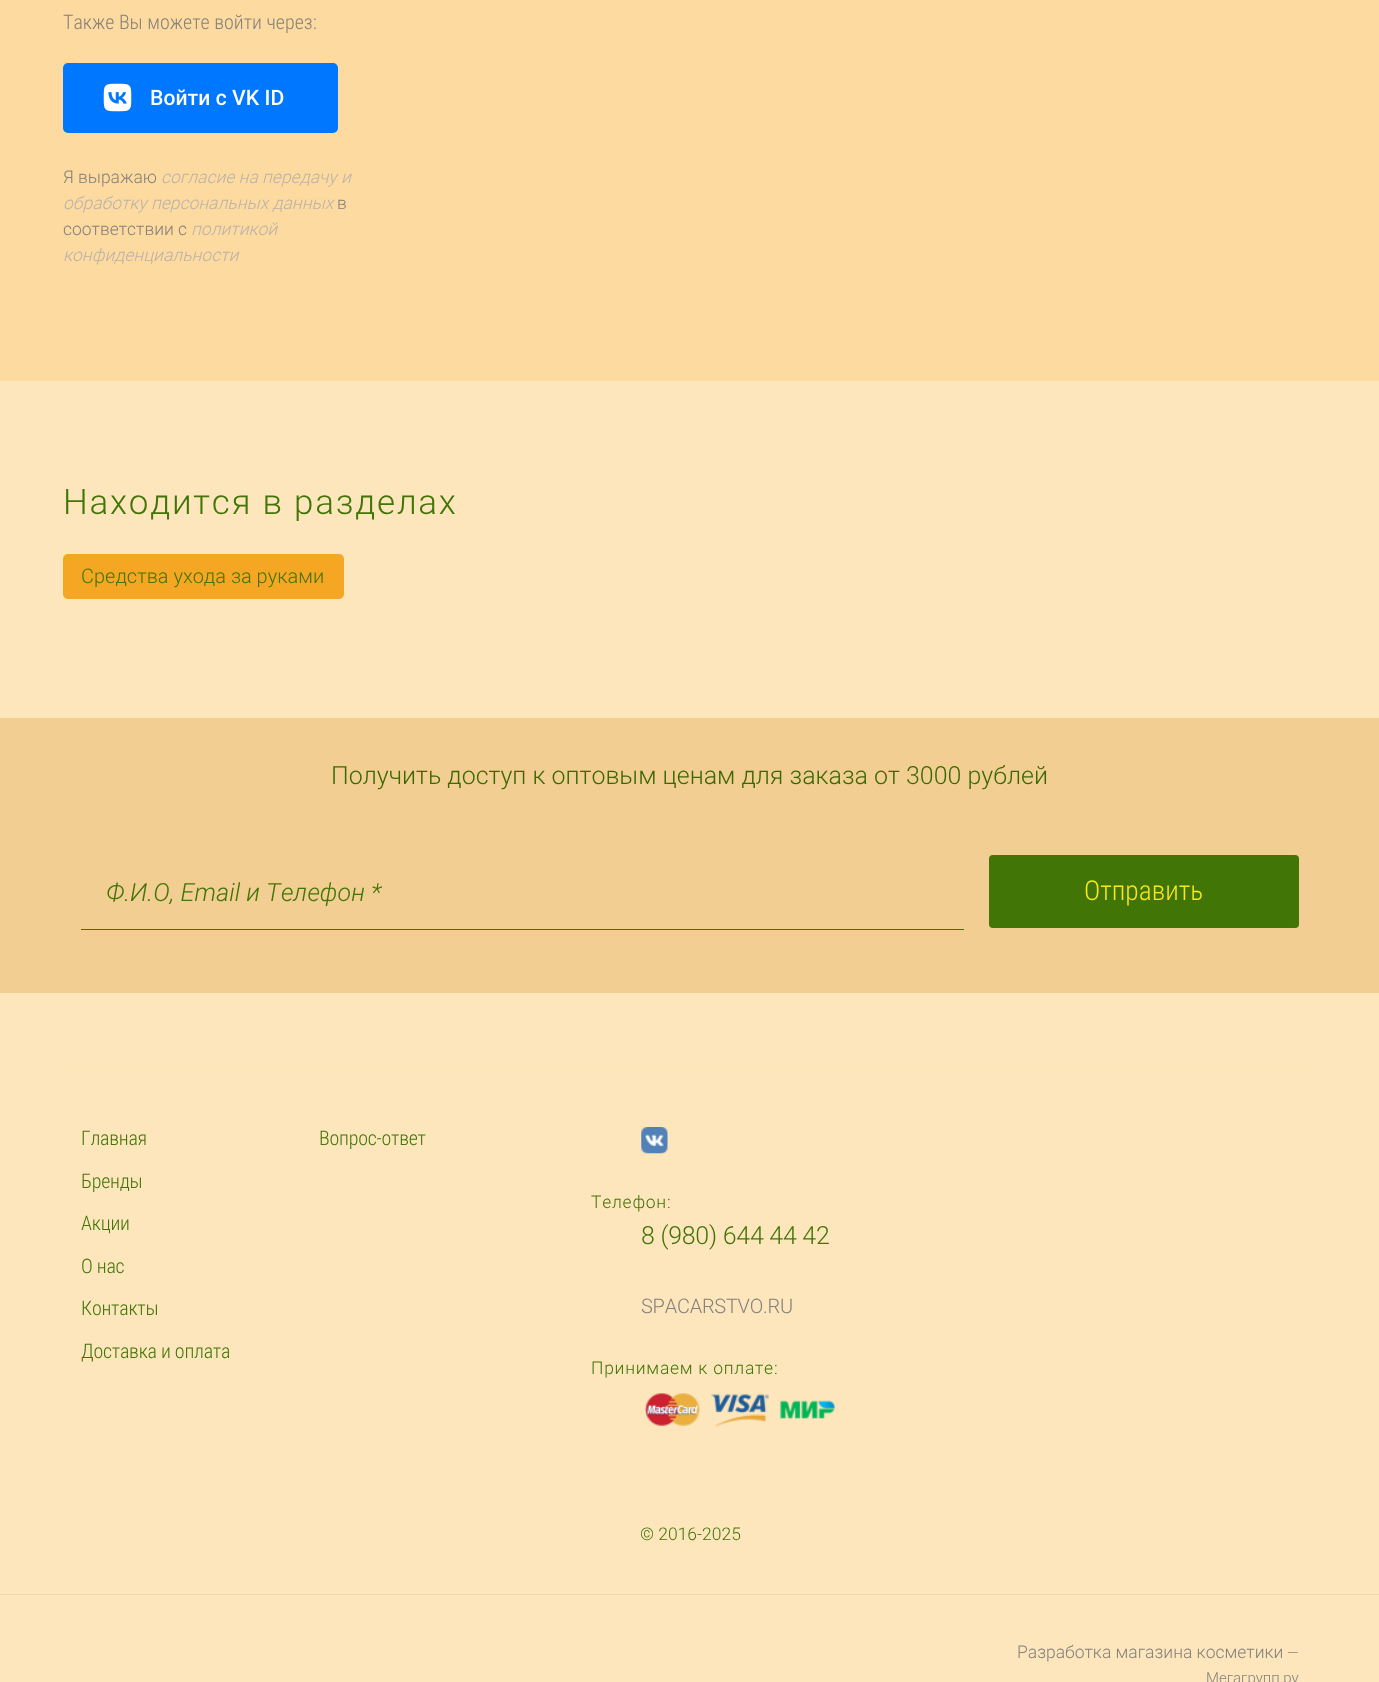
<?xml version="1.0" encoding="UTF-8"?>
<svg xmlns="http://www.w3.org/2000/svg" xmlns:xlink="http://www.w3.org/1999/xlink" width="1379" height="1682">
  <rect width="100%" height="100%" fill="#fde5bc" />
  <rect width="1379" height="381" fill="#fdda9f" />
  <rect x="63" y="63" width="275" height="70" rx="5" fill="#0077ff" />
  <image x="103" y="83" width="181" height="29" xlink:href="image1.png" />
  <rect x="63" y="554" width="281" height="45" rx="5" fill="#f5a623" />
  <rect y="718" width="1379" height="275" fill="#f3ce92" />
  <rect x="81" y="929" width="883" height="1" fill="#417505" />
  <rect x="989" y="855" width="310" height="73" rx="4" fill="#417505" />
  <rect x="63" y="1068" width="1255" height="1" fill="#fde5ac" />
  <image x="641" y="1127" width="27" height="27" xlink:href="image2.png" />
  <image x="645" y="1393" width="56" height="33" xlink:href="image3.png" />
  <image x="711" y="1394" width="58" height="33" xlink:href="image4.png" />
  <image x="779" y="1400" width="57" height="19" xlink:href="image5.png" />
  <rect y="1594" width="1379" height="1" fill="#eadaaa" />
  <text x="63" y="29" style="font-family: Roboto Condensed; font-size: 20px; font-weight: 300; fill: #85817c">Также Вы можете войти через:</text>
  <text x="63" y="183" style="font-family: Roboto; font-size: 17.5px; font-weight: 300; fill: #85817c">Я выражаю</text>
  <text x="161" y="183" style="font-family: Roboto; font-size: 17.5px; font-weight: 300; font-style: italic; fill: #bab2aa">согласие на передачу и</text>
  <text x="63" y="209" style="font-family: Roboto; font-size: 17.5px; font-weight: 300; font-style: italic; fill: #bab2aa">обработку персональных данных</text>
  <text x="337" y="209" style="font-family: Roboto; font-size: 17.5px; font-weight: 300; fill: #85817c">в</text>
  <text x="63" y="235" style="font-family: Roboto; font-size: 17.5px; font-weight: 300; fill: #85817c">соответствии с</text>
  <text x="191" y="235" style="font-family: Roboto; font-size: 17.5px; font-weight: 300; font-style: italic; fill: #bab2aa">политикой</text>
  <text x="63" y="261" style="font-family: Roboto; font-size: 17.5px; font-weight: 300; font-style: italic; fill: #bab2aa">конфиденциальности</text>
  <text x="63" y="514" style="font-family: Roboto; font-size: 35px; font-weight: 300; letter-spacing: 1.75px; fill: #417505">Находится в разделах</text>
  <text x="81" y="583" style="font-family: Roboto; font-size: 20px; font-weight: 300; fill: #417505">Средства ухода за руками</text>
  <text x="331" y="784" style="font-family: Roboto; font-size: 25px; font-weight: 300; fill: #3a6904">Получить доступ к оптовым ценам для заказа от 3000 рублей</text>
  <text x="106" y="901" style="font-family: 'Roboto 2'; font-size: 25px; font-weight: 300; font-style: italic; fill: #417505">Ф.И.О, Email и Телефон *</text>
  <text x="1084" y="900" style="font-family: Roboto Condensed; font-size: 27.5px; font-weight: 300; fill: #f8e71c">Отправить</text>
  <text x="81" y="1145" style="font-family: Roboto Condensed; font-size: 20px; font-weight: 300; letter-spacing: -0.25px; fill: #417505">Главная</text>
  <text x="81" y="1188" style="font-family: Roboto Condensed; font-size: 20px; font-weight: 300; letter-spacing: -0.25px; fill: #417505">Бренды</text>
  <text x="81" y="1230" style="font-family: Roboto Condensed; font-size: 20px; font-weight: 300; letter-spacing: -0.25px; fill: #417505">Акции</text>
  <text x="81" y="1273" style="font-family: Roboto Condensed; font-size: 20px; font-weight: 300; letter-spacing: -0.25px; fill: #417505">О нас</text>
  <text x="81" y="1315" style="font-family: Roboto Condensed; font-size: 20px; font-weight: 300; letter-spacing: -0.25px; fill: #417505">Контакты</text>
  <text x="81" y="1358" style="font-family: Roboto Condensed; font-size: 20px; font-weight: 300; letter-spacing: -0.25px; fill: #417505">Доставка и оплата</text>
  <text x="319" y="1145" style="font-family: Roboto Condensed; font-size: 20px; font-weight: 300; letter-spacing: -0.25px; fill: #417505">Вопрос-ответ</text>
  <text x="591" y="1208" style="font-family: Roboto; font-size: 17.5px; font-weight: 300; letter-spacing: 0.75px; fill: #417505">Телефон:</text>
  <text x="641" y="1244" style="font-family: Roboto; font-size: 25px; font-weight: 300; letter-spacing: -0.25px; fill: #417505">8 (980) 644 44 42</text>
  <text x="641" y="1313" style="font-family: Roboto; font-size: 20px; font-weight: 300; letter-spacing: -0.25px; fill: #85817c">SPACARSTVO.RU</text>
  <text x="591" y="1374" style="font-family: Roboto; font-size: 17.5px; font-weight: 300; letter-spacing: 0.75px; fill: #417505">Принимаем к оплате:</text>
  <text x="640" y="1540" style="font-family: Roboto; font-size: 17.5px; font-weight: 300; fill: #417505">© 2016-2025</text>
  <text x="1017" y="1658" style="font-family: Roboto; font-size: 17.5px; font-weight: 300; fill: #85817c">Разработка магазина косметики</text>
  <text x="1287" y="1658" style="font-family: Roboto; font-size: 15px; font-weight: 300; fill: #85817c">—</text>
  <text x="1206" y="1683" style="font-family: Roboto; font-size: 15px; font-weight: 300; fill: #85817c">Мегагрупп.ру</text>
</svg>
